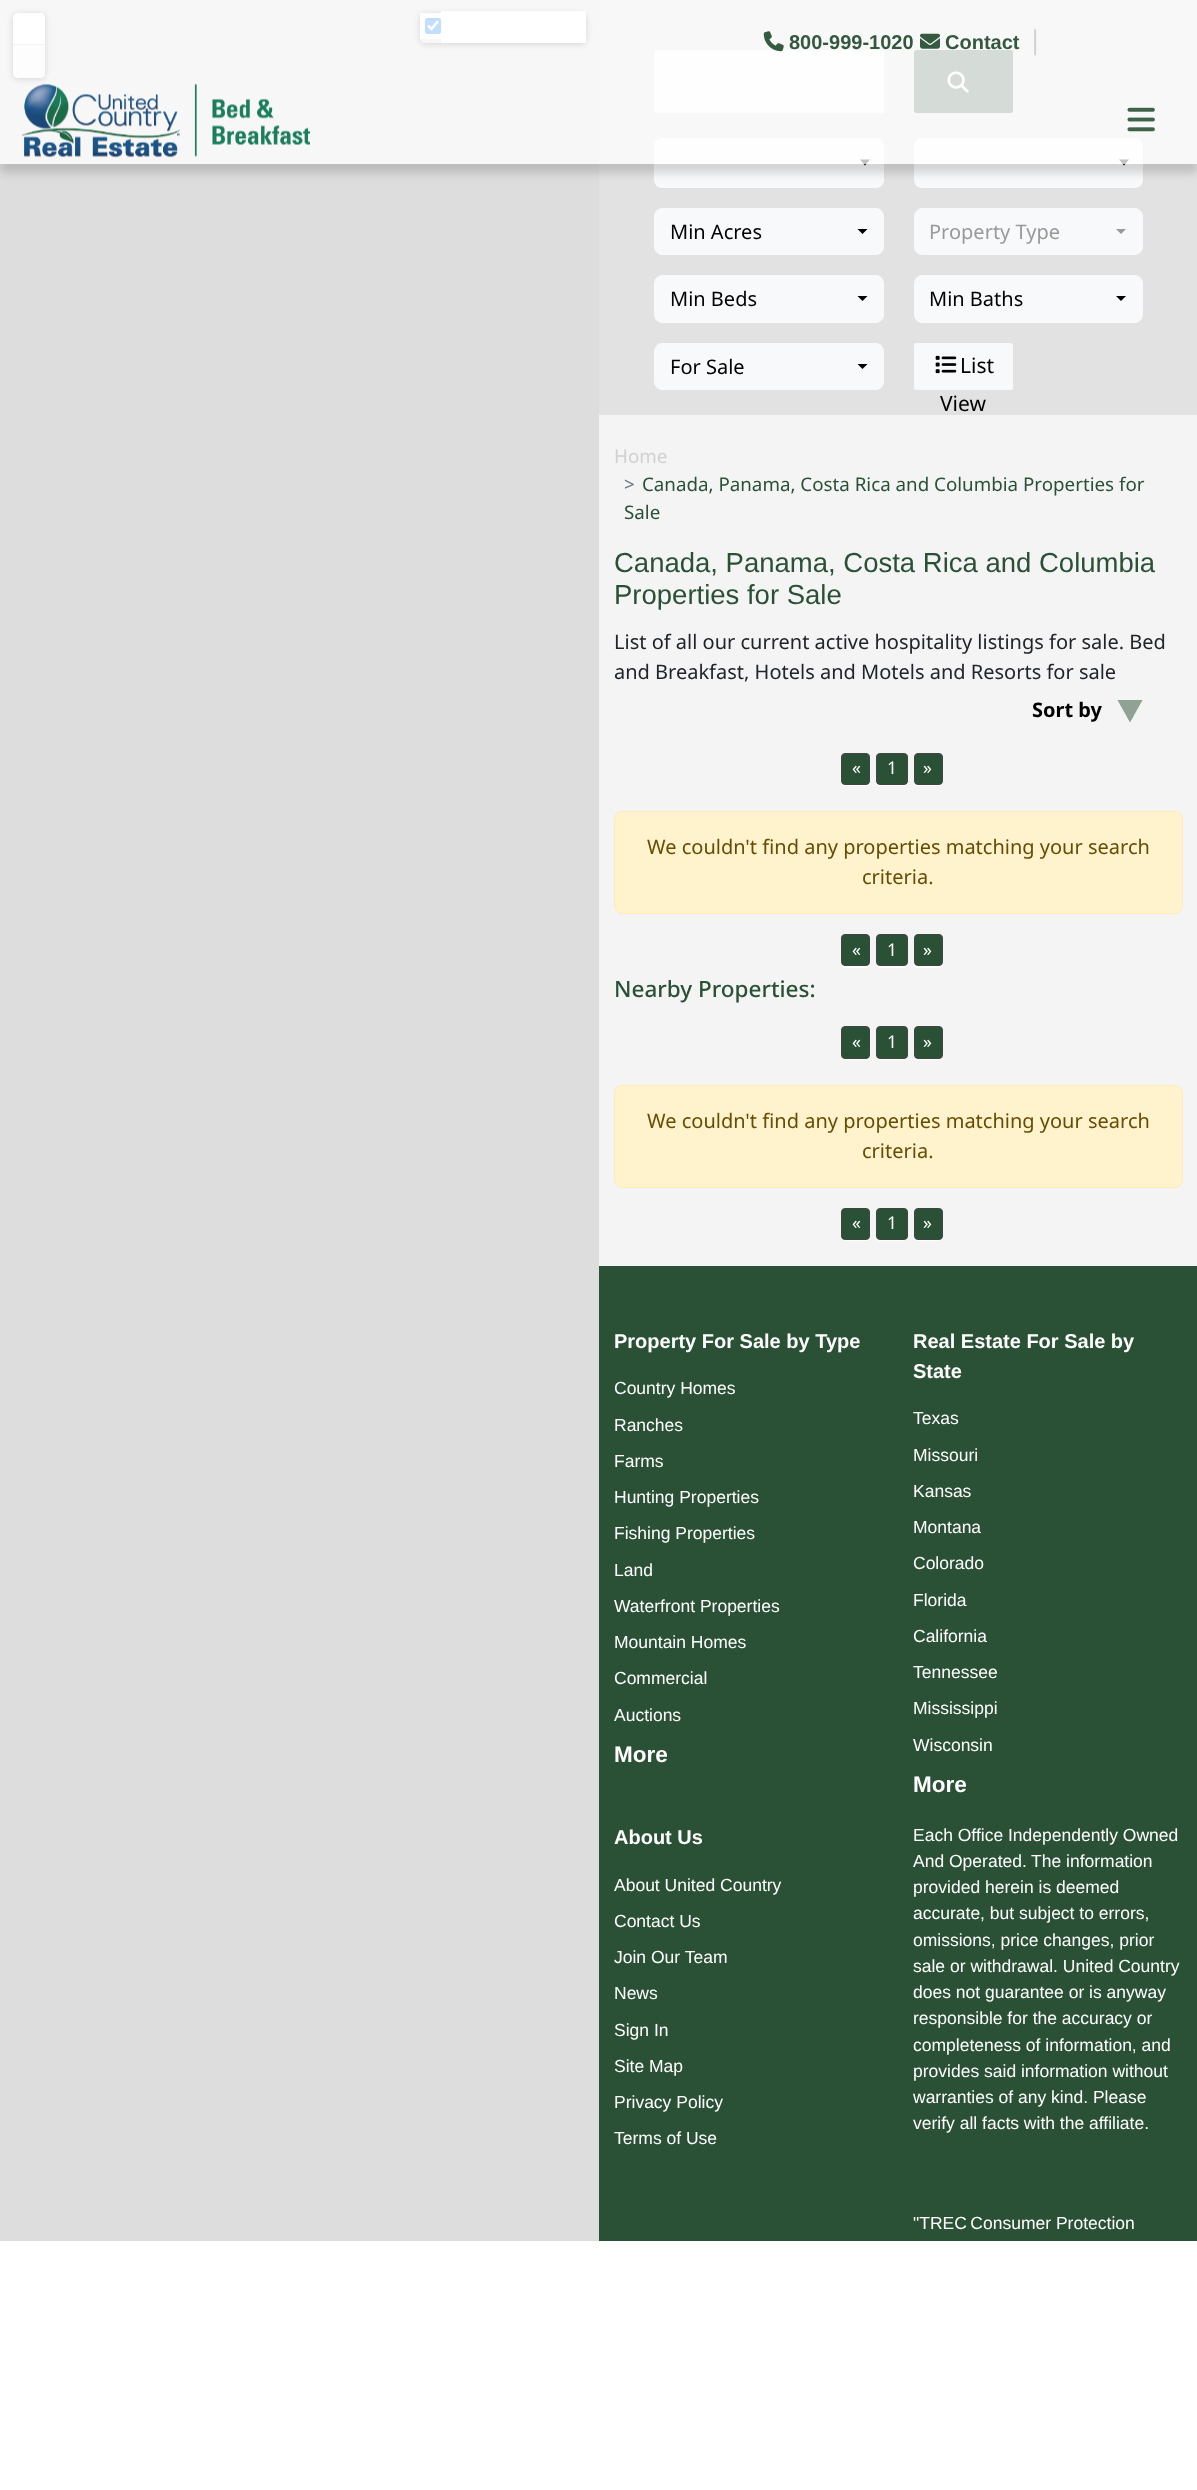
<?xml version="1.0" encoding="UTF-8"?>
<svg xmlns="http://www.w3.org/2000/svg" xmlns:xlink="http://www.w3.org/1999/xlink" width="1197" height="2490">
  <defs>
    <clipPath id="clip1"><path d="M 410 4 h 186 v 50 h -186 z m 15 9 h 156 c 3 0 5 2 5 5 v 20 c 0 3 -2 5 -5 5 h -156 c -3 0 -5 -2 -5 -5 v -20 c 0 -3 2 -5 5 -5 z" clip-rule="evenodd" /></clipPath>
    <clipPath id="clip2"><path d="M 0 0 h 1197 v 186 h -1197 z m 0 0 h 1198 v 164 h -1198 z" clip-rule="evenodd" /></clipPath>
  </defs>
  <rect width="100%" height="100%" fill="#ffffff" />
  <rect width="599" height="2241" fill="#dddddd" />
  <rect x="13" y="14" width="32" height="65" rx="5" fill="#000000" fill-opacity="0.65" filter="blur(3px)" />
  <path d="M 18 13 h 22 c 3 0 5 2 5 5 v 27 h -32 v -27 c 0 -3 2 -5 5 -5 z" fill="#ffffff" />
  <rect x="13" y="44" width="32" height="1" fill="#cccccc" />
  <path d="M 13 45 h 32 v 28 c 0 3 -2 5 -5 5 h -22 c -3 0 -5 -2 -5 -5 z" fill="#f4f4f4" />
  <g clip-path="url(#clip1)">
    <rect x="420" y="14" width="166" height="30" rx="5" fill="#000000" fill-opacity="0.65" filter="blur(3px)" />
  </g>
  <rect x="420" y="13" width="21" height="26" fill="#ffffff" />
  <rect x="441" y="11" width="145" height="32" fill="#ffffff" />
  <rect x="425" y="18" width="16" height="16" rx="2.5" fill="#0075ff" />
  <path d="M 428 25.5 l 3.5 3.5 l 6.5 -8" fill="none" stroke="#ffffff" stroke-width="2.6" />
  <rect x="599" width="598" height="415" fill="#e2e2e2" />
  <rect x="654" y="50" width="230" height="63" rx="2.5" fill="#f8f9fa" />
  <rect x="914" y="50" width="99" height="63" rx="2.5" fill="#4f6e58" />
  <image x="947" y="71" width="22" height="22" xlink:href="image5.png" />
  <rect x="654" y="138" width="230" height="50" rx="8" fill="#f8f9fa" />
  <path d="M 860 159.5 l 5 6 l 5 -6 z" fill="#000000" />
  <rect x="914" y="138" width="229" height="50" rx="8" fill="#f8f9fa" />
  <path d="M 1119 159.5 l 5 6 l 5 -6 z" fill="#000000" />
  <g clip-path="url(#clip2)">
    <rect y="9" width="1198" height="164" fill="#000000" fill-opacity="0.15" filter="blur(4px)" />
  </g>
  <rect width="1197" height="164" fill="#ffffff" fill-opacity="0.76" />
  <image x="763" y="31" width="21" height="21" xlink:href="image1.png" />
  <image x="920" y="33" width="20" height="16" xlink:href="image2.png" />
  <image x="22" y="83" width="288" height="75" xlink:href="image3.png" />
  <image x="1127" y="107" width="28" height="25" xlink:href="image4.png" />
  <rect x="599" y="415" width="598" height="851" fill="#f4f4f4" />
  <rect x="654.5" y="208.5" width="229" height="46" rx="7.5" fill="#f8f9fa" stroke="#f8f9fa" />
  <path d="M 857.5 229 h 10 l -5 5 z" fill="#000000" />
  <rect x="914.5" y="208.5" width="228" height="46" rx="7.5" fill="#f8f9fa" stroke="#f8f9fa" />
  <path d="M 1116 229 h 10 l -5 5 z" fill="#999999" />
  <rect x="654.5" y="275.5" width="229" height="47" rx="7.5" fill="#f8f9fa" stroke="#f8f9fa" />
  <path d="M 857.5 296 h 10 l -5 5 z" fill="#000000" />
  <rect x="914.5" y="275.5" width="228" height="47" rx="7.5" fill="#f8f9fa" stroke="#f8f9fa" />
  <path d="M 1116 296 h 10 l -5 5 z" fill="#000000" />
  <rect x="654.5" y="343.5" width="229" height="46" rx="7.5" fill="#f8f9fa" stroke="#f8f9fa" />
  <path d="M 857.5 364 h 10 l -5 5 z" fill="#000000" />
  <rect x="914" y="343" width="99" height="47" rx="2.5" fill="#f8f9fa" />
  <image x="935" y="355" width="22" height="19" xlink:href="image6.png" />
  <image x="1117" y="700" width="26" height="22" xlink:href="image7.png" />
  <path d="M 841 756.5 v 13.5 c 0 17.5 -2.5 16 14.5 16 h 7 c 4 0 7.5 0.5 7.5 -5 c 0 2.5 -1.5 4 -4 4 h -21 c -2 0 -4 -1.5 -4 -4 z" fill="#ffffff" />
  <rect x="841.5" y="753.5" width="28" height="31" rx="3.5" fill="#2a5135" stroke="#444444" />
  <path d="M 876 756.5 v 5.5 v 21 c 1 3.5 5 3 8 3 h 8 c 18 0 16 2 16 -16 v -8 c 0 -1.5 0.5 -4.5 -0.5 -6 v 21 c 0 7.5 0 8 -7.5 8 h -16 c -7.5 0 -8 -0.5 -8 -8 z" fill="#ffffff" />
  <rect x="876.5" y="753.5" width="31" height="31" rx="3.5" fill="#2a5135" stroke="#444444" />
  <path d="M 914 783 c 0.5 1.5 2 3 4 3 h 21 c 2 0 4 -2 4 -4 v -24 l -0.5 -2 v 17 c 0 12.5 1.5 12 -11 12 h -10.5 c -2.5 0 -5.5 0.5 -7 -2 z" fill="#ffffff" />
  <rect x="914.5" y="753.5" width="28" height="31" rx="3.5" fill="#2a5135" stroke="#444444" />
  <rect x="614.5" y="811.5" width="568" height="102" rx="7.5" fill="#fff3cd" stroke="#ffecb5" />
  <path d="M 841 937.5 v 14 c 0 18 -3 16.5 14.5 16.5 h 7 c 5 0 7.5 0 7.5 -5.5 c 0 2 -1.5 3.5 -4 3.5 h -21 c -2 0 -4 -1.5 -4 -3.5 z" fill="#ffffff" />
  <rect x="841.5" y="934.5" width="28" height="31" rx="3.5" fill="#2a5135" stroke="#444444" />
  <path d="M 876 937.5 v 5.5 v 22 c 1 3.5 5 3 8 3 h 8 c 18.5 0 16 2 16 -16.5 v -8.5 c 0 -1.5 0.5 -4.5 -0.5 -6 v 26.5 c -1 3.5 -5 2.5 -7.5 2.5 h -16 c -7.5 0 -8 0 -8 -7.5 z" fill="#ffffff" />
  <rect x="876.5" y="934.5" width="31" height="31" rx="3.5" fill="#2a5135" stroke="#444444" />
  <path d="M 914 964 c 0 4.5 4.5 4 7.5 4 h 7 c 17.5 0 14.5 1.5 14.5 -16.5 v -8.5 c 0 -1.5 0.5 -4.5 -0.5 -6 v 26.5 c -1 3.5 -4.5 2.5 -7.5 2.5 h -14 c -2.5 0 -6 1 -7 -2 z" fill="#ffffff" />
  <rect x="914.5" y="934.5" width="28" height="31" rx="3.5" fill="#2a5135" stroke="#444444" />
  <path d="M 841 1030.5 v 13.5 c 0 17.5 -2.5 16 14.5 16 h 7 c 4.5 0 7.5 0 7.5 -5 c 0 2 -1.5 4 -4 4 h -21 c -2 0 -4 -2 -4 -4 z" fill="#ffffff" />
  <rect x="841.5" y="1026.5" width="28" height="32" rx="3.5" fill="#2a5135" stroke="#444444" />
  <path d="M 876 1030.5 v 5.5 v 21 c 1 3.5 5 3 8 3 h 8 c 18 0 16 2 16 -16 v -8 c 0 -1.5 0.5 -4.5 -0.5 -6 v 25 c 0 2 -1.5 4 -3.5 4 h -24 c -2 0 -4 -2 -4 -4 z" fill="#ffffff" />
  <rect x="876.5" y="1026.5" width="31" height="32" rx="3.5" fill="#2a5135" stroke="#444444" />
  <path d="M 914 1056.5 c 0 2 2 3.5 4 3.5 h 21 c 2 0 4 -2 4 -4 v -24 l -0.5 -2 v 25 c 0 2 -1.5 4 -3.5 4 h -21.5 c -1.5 0 -3 -1 -3.5 -2.5 z" fill="#ffffff" />
  <rect x="914.5" y="1026.5" width="28" height="32" rx="3.5" fill="#2a5135" stroke="#444444" />
  <rect x="614.5" y="1085.5" width="568" height="102" rx="7.5" fill="#fff3cd" stroke="#ffecb5" />
  <path d="M 841 1211.5 v 13.5 c 0 17.5 -2.5 16 14.5 16 h 7 c 4 0 7.5 0.5 7.5 -5 c 0 2.5 -1.5 4 -4 4 h -21 c -2 0 -4 -1.5 -4 -4 z" fill="#ffffff" />
  <rect x="841.5" y="1208.5" width="28" height="31" rx="3.5" fill="#2a5135" stroke="#444444" />
  <path d="M 876 1211.5 v 5.5 v 21 c 1 3.5 5 3 8 3 h 8 c 18 0 16 2 16 -16 v -8 c 0 -1.5 0.5 -4.5 -0.5 -6 v 21 c 0 7.5 0 8 -7.5 8 h -16 c -7.5 0 -8 -0.5 -8 -8 z" fill="#ffffff" />
  <rect x="876.5" y="1208.5" width="31" height="31" rx="3.5" fill="#2a5135" stroke="#444444" />
  <path d="M 914 1238 c 0.5 1.5 2 3 4 3 h 21 c 2 0 4 -2 4 -4 v -24 l -0.5 -2 v 17 c 0 12.5 1.5 12 -11 12 h -10.5 c -2.5 0 -5.5 0.5 -7 -2 z" fill="#ffffff" />
  <rect x="914.5" y="1208.5" width="28" height="31" rx="3.5" fill="#2a5135" stroke="#444444" />
  <rect x="599" y="1266" width="598" height="975" fill="#2a5135" />
  <text x="789" y="49" style="font-family: Liberation Sans; font-size: 20px; font-weight: bold; fill: #33583e">800-999-1020</text>
  <text x="945" y="49" style="font-family: Liberation Sans; font-size: 20px; font-weight: bold; fill: #33583e">Contact</text>
  <text x="1028" y="49" style="font-family: Noto Sans; font-size: 26px; fill: #d0d0d0">|</text>
  <text x="670" y="239" style="font-family: Noto Sans; font-size: 20px; fill: #000000">Min Acres</text>
  <text x="929" y="239" style="font-family: Noto Sans; font-size: 20px; fill: #999999">Property Type</text>
  <text x="670" y="306" style="font-family: Noto Sans; font-size: 20px; fill: #000000">Min Beds</text>
  <text x="929" y="306" style="font-family: Noto Sans; font-size: 20px; fill: #000000">Min Baths</text>
  <text x="670" y="374" style="font-family: Noto Sans; font-size: 20px; fill: #000000">For Sale</text>
  <text x="960" y="373" style="font-family: Noto Sans; font-size: 21px; fill: #000000">List</text>
  <text x="940" y="411" style="font-family: Noto Sans; font-size: 21px; fill: #000000">View</text>
  <text x="614" y="463" style="font-family: Noto Sans; font-size: 18.75px; fill: #d0d0d0">Home</text>
  <text x="624" y="491" style="font-family: Noto Sans; font-size: 18.75px; fill: #6c757d">&gt;</text>
  <text x="642" y="491" style="font-family: Noto Sans; font-size: 18.75px; fill: #2a5135">Canada, Panama, Costa Rica and Columbia Properties for</text>
  <text x="624" y="519" style="font-family: Noto Sans; font-size: 18.75px; fill: #2a5135">Sale</text>
  <text x="614" y="572" style="font-family: Liberation Sans; font-size: 27.5px; fill: #2a5135">Canada, Panama, Costa Rica and Columbia</text>
  <text x="614" y="604" style="font-family: Liberation Sans; font-size: 27.5px; fill: #2a5135">Properties for Sale</text>
  <text x="614" y="649" style="font-family: Noto Sans; font-size: 20px; fill: #212529">List of all our current active hospitality listings for sale. Bed</text>
  <text x="614" y="679" style="font-family: Noto Sans; font-size: 20px; fill: #212529">and Breakfast, Hotels and Motels and Resorts for sale</text>
  <text x="1032" y="717" style="font-family: Noto Sans; font-size: 20px; font-weight: bold; fill: #000000">Sort by</text>
  <text x="852" y="774" style="font-family: Noto Sans; font-size: 17.5px; fill: #ffffff">«</text>
  <text x="887" y="774" style="font-family: Noto Sans; font-size: 17.5px; fill: #ffffff">1</text>
  <text x="923" y="774" style="font-family: Noto Sans; font-size: 17.5px; fill: #ffffff">»</text>
  <text x="647" y="854" style="font-family: Noto Sans; font-size: 20px; fill: #664d03">We couldn't find any properties matching your search</text>
  <text x="862" y="884" style="font-family: Noto Sans; font-size: 20px; fill: #664d03">criteria.</text>
  <text x="852" y="956" style="font-family: Noto Sans; font-size: 17.5px; fill: #ffffff">«</text>
  <text x="887" y="956" style="font-family: Noto Sans; font-size: 17.5px; fill: #ffffff">1</text>
  <text x="923" y="956" style="font-family: Noto Sans; font-size: 17.5px; fill: #ffffff">»</text>
  <text x="614" y="997" style="font-family: Noto Sans; font-size: 22.5px; font-weight: 500; fill: #2a5135">Nearby Properties:</text>
  <text x="852" y="1048" style="font-family: Noto Sans; font-size: 17.5px; fill: #ffffff">«</text>
  <text x="887" y="1048" style="font-family: Noto Sans; font-size: 17.5px; fill: #ffffff">1</text>
  <text x="923" y="1048" style="font-family: Noto Sans; font-size: 17.5px; fill: #ffffff">»</text>
  <text x="647" y="1128" style="font-family: Noto Sans; font-size: 20px; fill: #664d03">We couldn't find any properties matching your search</text>
  <text x="862" y="1158" style="font-family: Noto Sans; font-size: 20px; fill: #664d03">criteria.</text>
  <text x="852" y="1229" style="font-family: Noto Sans; font-size: 17.5px; fill: #ffffff">«</text>
  <text x="887" y="1229" style="font-family: Noto Sans; font-size: 17.5px; fill: #ffffff">1</text>
  <text x="923" y="1229" style="font-family: Noto Sans; font-size: 17.5px; fill: #ffffff">»</text>
  <text x="614" y="1348" style="font-family: Liberation Sans; font-size: 20px; font-weight: bold; fill: #ffffff">Property For Sale by Type</text>
  <text x="614" y="1394" style="font-family: Liberation Sans; font-size: 17.5px; fill: #ffffff">Country Homes</text>
  <text x="614" y="1431" style="font-family: Liberation Sans; font-size: 17.5px; fill: #ffffff">Ranches</text>
  <text x="614" y="1467" style="font-family: Liberation Sans; font-size: 17.5px; fill: #ffffff">Farms</text>
  <text x="614" y="1503" style="font-family: Liberation Sans; font-size: 17.5px; fill: #ffffff">Hunting Properties</text>
  <text x="614" y="1539" style="font-family: Liberation Sans; font-size: 17.5px; fill: #ffffff">Fishing Properties</text>
  <text x="614" y="1576" style="font-family: Liberation Sans; font-size: 17.5px; fill: #ffffff">Land</text>
  <text x="614" y="1612" style="font-family: Liberation Sans; font-size: 17.5px; fill: #ffffff">Waterfront Properties</text>
  <text x="614" y="1648" style="font-family: Liberation Sans; font-size: 17.5px; fill: #ffffff">Mountain Homes</text>
  <text x="614" y="1684" style="font-family: Liberation Sans; font-size: 17.5px; fill: #ffffff">Commercial</text>
  <text x="614" y="1721" style="font-family: Liberation Sans; font-size: 17.5px; fill: #ffffff">Auctions</text>
  <text x="614" y="1762" style="font-family: Liberation Sans; font-size: 22.5px; font-weight: bold; fill: #ffffff">More</text>
  <text x="913" y="1348" style="font-family: Liberation Sans; font-size: 20px; font-weight: bold; fill: #ffffff">Real Estate For Sale by</text>
  <text x="913" y="1378" style="font-family: Liberation Sans; font-size: 20px; font-weight: bold; fill: #ffffff">State</text>
  <text x="913" y="1424" style="font-family: Liberation Sans; font-size: 17.5px; fill: #ffffff">Texas</text>
  <text x="913" y="1461" style="font-family: Liberation Sans; font-size: 17.5px; fill: #ffffff">Missouri</text>
  <text x="913" y="1497" style="font-family: Liberation Sans; font-size: 17.5px; fill: #ffffff">Kansas</text>
  <text x="913" y="1533" style="font-family: Liberation Sans; font-size: 17.5px; fill: #ffffff">Montana</text>
  <text x="913" y="1569" style="font-family: Liberation Sans; font-size: 17.5px; fill: #ffffff">Colorado</text>
  <text x="913" y="1606" style="font-family: Liberation Sans; font-size: 17.5px; fill: #ffffff">Florida</text>
  <text x="913" y="1642" style="font-family: Liberation Sans; font-size: 17.5px; fill: #ffffff">California</text>
  <text x="913" y="1678" style="font-family: Liberation Sans; font-size: 17.5px; fill: #ffffff">Tennessee</text>
  <text x="913" y="1714" style="font-family: Liberation Sans; font-size: 17.5px; fill: #ffffff">Mississippi</text>
  <text x="913" y="1751" style="font-family: Liberation Sans; font-size: 17.5px; fill: #ffffff">Wisconsin</text>
  <text x="913" y="1792" style="font-family: Liberation Sans; font-size: 22.5px; font-weight: bold; fill: #ffffff">More</text>
  <text x="614" y="1844" style="font-family: Liberation Sans; font-size: 20px; font-weight: bold; fill: #ffffff">About Us</text>
  <text x="614" y="1891" style="font-family: Liberation Sans; font-size: 17.5px; fill: #ffffff">About United Country</text>
  <text x="614" y="1927" style="font-family: Liberation Sans; font-size: 17.5px; fill: #ffffff">Contact Us</text>
  <text x="614" y="1963" style="font-family: Liberation Sans; font-size: 17.5px; fill: #ffffff">Join Our Team</text>
  <text x="614" y="1999" style="font-family: Liberation Sans; font-size: 17.5px; fill: #ffffff">News</text>
  <text x="614" y="2036" style="font-family: Liberation Sans; font-size: 17.5px; fill: #ffffff">Sign In</text>
  <text x="614" y="2072" style="font-family: Liberation Sans; font-size: 17.5px; fill: #ffffff">Site Map</text>
  <text x="614" y="2108" style="font-family: Liberation Sans; font-size: 17.5px; fill: #ffffff">Privacy Policy</text>
  <text x="614" y="2144" style="font-family: Liberation Sans; font-size: 17.5px; fill: #ffffff">Terms of Use</text>
  <text x="913" y="1841" style="font-family: Liberation Sans; font-size: 17.5px; fill: #ffffff">Each Office Independently Owned</text>
  <text x="913" y="1867" style="font-family: Liberation Sans; font-size: 17.5px; fill: #ffffff">And Operated.</text>
  <text x="1031" y="1867" style="font-family: Liberation Sans; font-size: 17.5px; fill: #ffffff">The information</text>
  <text x="913" y="1893" style="font-family: Liberation Sans; font-size: 17.5px; fill: #ffffff">provided herein is deemed</text>
  <text x="913" y="1919" style="font-family: Liberation Sans; font-size: 17.5px; fill: #ffffff">accurate, but subject to errors,</text>
  <text x="913" y="1946" style="font-family: Liberation Sans; font-size: 17.5px; fill: #ffffff">omissions, price changes, prior</text>
  <text x="913" y="1972" style="font-family: Liberation Sans; font-size: 17.5px; fill: #ffffff">sale or withdrawal. United Country</text>
  <text x="913" y="1998" style="font-family: Liberation Sans; font-size: 17.5px; fill: #ffffff">does not guarantee or is anyway</text>
  <text x="913" y="2024" style="font-family: Liberation Sans; font-size: 17.5px; fill: #ffffff">responsible for the accuracy or</text>
  <text x="913" y="2051" style="font-family: Liberation Sans; font-size: 17.5px; fill: #ffffff">completeness of information, and</text>
  <text x="913" y="2077" style="font-family: Liberation Sans; font-size: 17.5px; fill: #ffffff">provides said information without</text>
  <text x="913" y="2103" style="font-family: Liberation Sans; font-size: 17.5px; fill: #ffffff">warranties of any kind. Please</text>
  <text x="913" y="2129" style="font-family: Liberation Sans; font-size: 17.5px; fill: #ffffff">verify all facts with the affiliate.</text>
  <text x="913" y="2229" style="font-family: Liberation Sans; font-size: 17.5px; fill: #ffffff">"TREC Consumer Protection</text>
</svg>
